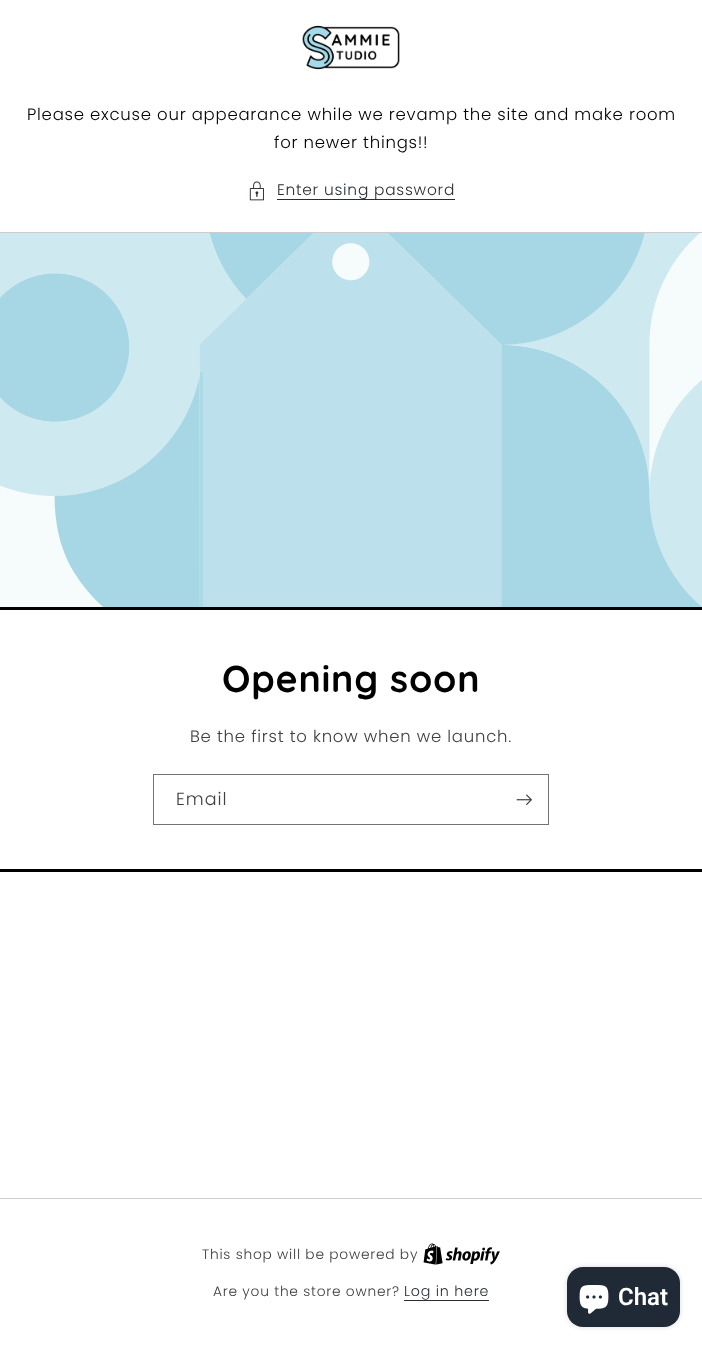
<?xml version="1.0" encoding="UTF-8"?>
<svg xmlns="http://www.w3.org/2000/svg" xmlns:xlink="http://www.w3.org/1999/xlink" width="702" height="1348">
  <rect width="100%" height="100%" fill="#ffffff" />
  <image x="302" y="25" width="98" height="45" xlink:href="image1.png" />
  <image x="249" y="181" width="15" height="20" xlink:href="image2.png" />
  <rect x="277" y="199" width="178" height="1" fill="#282e36" />
  <rect y="232" width="702" height="1" fill="#cccccc" />
  <image x="0" y="233" width="702" height="374" xlink:href="image3.png" />
  <rect y="607" width="702" height="3" fill="#000000" />
  <rect y="869" width="702" height="3" fill="#000000" />
  <rect x="153.5" y="774.5" width="395" height="50" fill="none" stroke="#737373" />
  <image x="516" y="794" width="16" height="11" xlink:href="image4.png" />
  <rect y="1198" width="702" height="1" fill="#cccccc" />
  <image x="423" y="1243" width="77" height="22" xlink:href="image5.png" />
  <rect x="404" y="1300" width="85" height="1" fill="#282e36" />
  <rect x="567" y="1267" width="113" height="60" rx="16" fill="#000000" fill-opacity="0.15" filter="blur(2.5px)" />
  <rect x="567" y="1267" width="113" height="60" rx="16" fill="#202a36" />
  <image x="579" y="1285" width="30" height="29" xlink:href="image6.png" />
  <text x="27" y="120" style="font-family: Poppins; font-size: 16.5px; font-weight: 300; letter-spacing: 0.77px; fill: #000000">Please excuse our appearance while we revamp the site and make room</text>
  <text x="274" y="148" style="font-family: Poppins; font-size: 16.5px; font-weight: 300; letter-spacing: 0.77px; fill: #000000">for newer things!!</text>
  <text x="277" y="195" style="font-family: Poppins; font-size: 15.4px; font-weight: 300; letter-spacing: 0.77px; fill: #282e36">Enter using password</text>
  <text x="222" y="692" style="font-family: Quicksand; font-size: 37.5px; font-weight: bold; letter-spacing: 0.75px; fill: #000000">Opening soon</text>
  <text x="190" y="742" style="font-family: Poppins; font-size: 16.5px; font-weight: 300; letter-spacing: 0.77px; fill: #404040">Be the first to know when we launch.</text>
  <text x="176" y="805" style="font-family: Poppins; font-size: 17.5px; font-weight: 300; letter-spacing: 1px; fill: #404040">Email</text>
  <text x="202" y="1259" style="font-family: Poppins; font-size: 13.75px; font-weight: 300; letter-spacing: 0.77px; fill: #404040">This shop will be powered by</text>
  <text x="213" y="1296" style="font-family: Poppins; font-size: 13.75px; font-weight: 300; letter-spacing: 0.77px; fill: #404040">Are you the store owner?</text>
  <text x="404" y="1296" style="font-family: Poppins; font-size: 14.25px; font-weight: 300; letter-spacing: 0.77px; fill: #282e36">Log in here</text>
  <text x="618" y="1305" style="font-family: Roboto; font-size: 24px; font-weight: 600; fill: #ffffff">Chat</text>
</svg>
